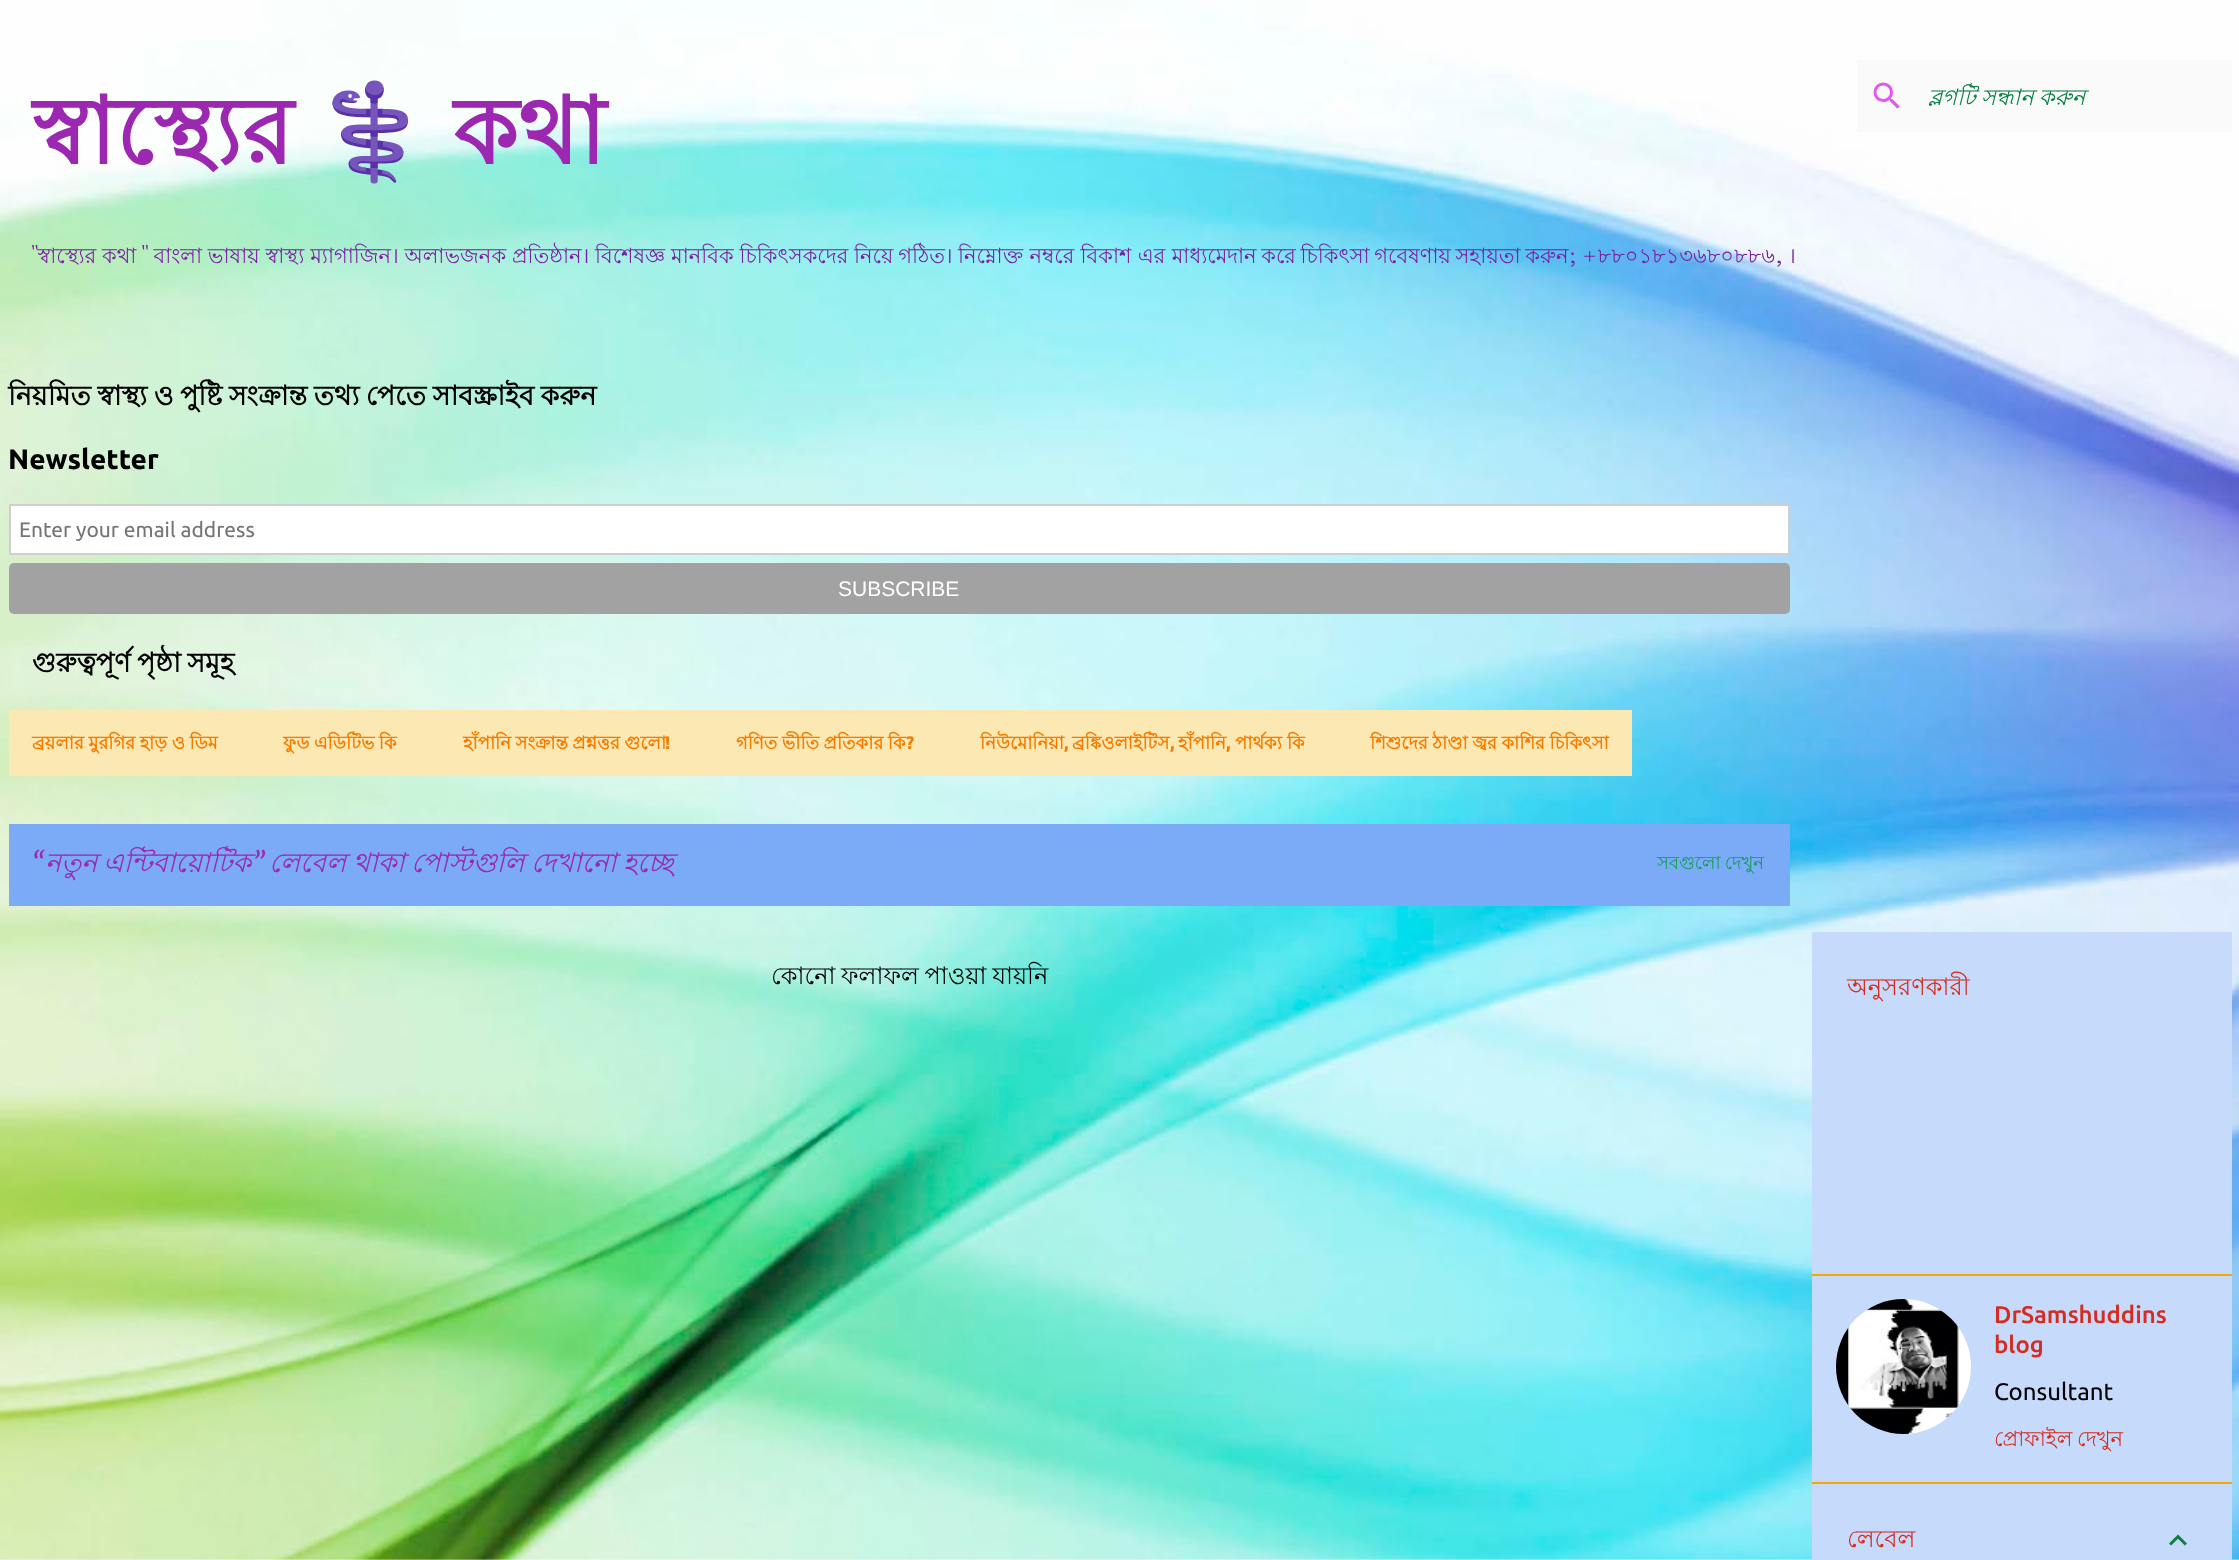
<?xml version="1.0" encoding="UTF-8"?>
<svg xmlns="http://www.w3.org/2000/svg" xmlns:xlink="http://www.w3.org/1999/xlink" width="2239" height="1560">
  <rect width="100%" height="100%" fill="#ffffff" />
  <image x="0" y="0" width="2239" height="1560" xlink:href="image1.png" />
  <rect x="1857" y="60" width="375" height="72" fill="#fafafa" />
  <image x="1873" y="82" width="27" height="27" xlink:href="image2.png" />
  <rect x="10" y="505" width="1779" height="49" fill="#ffffff" stroke="#cfcfcf" stroke-width="2" />
  <rect x="9" y="563" width="1781" height="51" rx="5" fill="#a2a2a2" />
  <rect x="9" y="710" width="1623" height="66" fill="#fce8b2" />
  <rect x="9" y="824" width="1781" height="82" fill="#7baaf7" />
  <rect x="1812" y="932" width="420" height="628" fill="#c6dafc" />
  <rect x="1812" y="1274" width="420" height="2" fill="#f4a900" />
  <image x="1836" y="1299" width="135" height="135" xlink:href="image3.png" />
  <rect x="1812" y="1482" width="420" height="2" fill="#f4a900" />
  <image x="2169" y="1534" width="18" height="12" xlink:href="image4.png" />
  <text x="32" y="164" style="font-family: Lohit Bengali; font-size: 93px; font-weight: bold; fill: #9c27b0">স্বাস্থ্যের</text>
  <text x="315" y="164" style="font-family: Noto Color Emoji; font-size: 93px; font-weight: bold; fill: #9c27b0">⚕️</text>
  <text x="453" y="164" style="font-family: Lohit Bengali; font-size: 93px; font-weight: bold; fill: #9c27b0">কথা</text>
  <text x="32" y="263" style="font-family: Lohit Bengali; font-size: 21px; fill: #7b1fa2">"স্বাস্থ্যের কথা " বাংলা ভাষায় স্বাস্থ্য ম্যাগাজিন। অলাভজনক প্রতিষ্ঠান। বিশেষজ্ঞ মানবিক চিকিৎসকদের</text>
  <text x="854" y="263" word-spacing="-1" style="font-family: Lohit Bengali; font-size: 21px; fill: #7b1fa2">নিয়ে গঠিত।</text>
  <text x="958" y="263" word-spacing="0.5" style="font-family: Lohit Bengali; font-size: 21px; fill: #7b1fa2">নিম্নোক্ত নম্বরে বিকাশ এর মাধ্যমে</text>
  <text x="1227" y="263" word-spacing="-1.25" style="font-family: Lohit Bengali; font-size: 21px; fill: #7b1fa2">দান করে চিকিৎসা গবেষণায় সহায়তা করুন; +৮৮০১৮১৩৬৮০৮৮৬, ।</text>
  <text x="1928" y="105" word-spacing="-1" style="font-family: Lohit Bengali; font-size: 22.5px; font-style: italic; fill: #0b8043">ব্লগটি সন্ধান করুন</text>
  <text x="8" y="405" word-spacing="-1" style="font-family: Lohit Bengali; font-size: 27px; font-weight: bold; fill: #000000">নিয়মিত স্বাস্থ্য ও পুষ্টি সংক্রান্ত তথ্য পেতে সাবস্ক্রাইব করুন</text>
  <text x="8" y="469" style="font-family: Ubuntu; font-size: 28px; font-weight: bold; fill: #000000">Newsletter</text>
  <text x="19" y="537" style="font-family: Ubuntu; font-size: 21px; fill: #757575">Enter your email address</text>
  <text x="838" y="596" style="font-family: Liberation Sans; font-size: 21px; fill: #ffffff">SUBSCRIBE</text>
  <text x="32" y="672" word-spacing="-1" style="font-family: Lohit Bengali; font-size: 27px; font-weight: bold; fill: #000000">গুরুত্বপূর্ণ পৃষ্ঠা সমূহ</text>
  <text x="32" y="749" word-spacing="-0.5" style="font-family: Lohit Bengali; font-size: 18px; font-weight: bold; fill: #f57c00">ব্রয়লার মুরগির হাড় ও ডিম</text>
  <text x="283" y="749" word-spacing="-0.5" style="font-family: Lohit Bengali; font-size: 18px; font-weight: bold; fill: #f57c00">ফুড এডিটিভ কি</text>
  <text x="463" y="749" word-spacing="-0.5" style="font-family: Lohit Bengali; font-size: 18px; font-weight: bold; fill: #f57c00">হাঁপানি সংক্রান্ত প্রশ্নত্তর গুলো</text>
  <text x="665" y="749" style="font-family: Ubuntu; font-size: 18px; font-weight: bold; fill: #f57c00">!</text>
  <text x="736" y="749" word-spacing="-0.5" style="font-family: Lohit Bengali; font-size: 18px; font-weight: bold; fill: #f57c00">গণিত ভীতি প্রতিকার কি</text>
  <text x="906" y="749" style="font-family: Ubuntu; font-size: 18px; font-weight: bold; fill: #f57c00">?</text>
  <text x="980" y="749" style="font-family: Lohit Bengali; font-size: 18px; font-weight: bold; fill: #f57c00">নিউমোনিয়া</text>
  <text x="1064" y="749" style="font-family: Ubuntu; font-size: 18px; font-weight: bold; fill: #f57c00">,</text>
  <text x="1072" y="749" style="font-family: Lohit Bengali; font-size: 18px; font-weight: bold; fill: #f57c00">ব্রঙ্কিওলাইটিস</text>
  <text x="1235" y="749" style="font-family: Lohit Bengali; font-size: 18px; font-weight: bold; fill: #f57c00">পার্থক্য কি</text>
  <text x="1170" y="749" style="font-family: Ubuntu; font-size: 18px; font-weight: bold; fill: #f57c00">,</text>
  <text x="1178" y="749" style="font-family: Lohit Bengali; font-size: 18px; font-weight: bold; fill: #f57c00">হাঁপানি</text>
  <text x="1226" y="749" style="font-family: Ubuntu; font-size: 18px; font-weight: bold; fill: #f57c00">,</text>
  <text x="1370" y="749" word-spacing="-0.5" style="font-family: Lohit Bengali; font-size: 18px; font-weight: bold; fill: #f57c00">শিশুদের ঠাণ্ডা জ্বর কাশির চিকিৎসা</text>
  <text x="32" y="872" style="font-family: Merriweather; font-size: 27px; font-weight: 300; font-style: italic; fill: #9c27b0">“</text>
  <text x="45" y="872" word-spacing="-2" style="font-family: Lohit Bengali; font-size: 27px; font-style: italic; fill: #9c27b0">নতুন এন্টিবায়োটিক</text>
  <text x="252" y="872" style="font-family: Merriweather; font-size: 27px; font-weight: 300; font-style: italic; fill: #9c27b0">”</text>
  <text x="269" y="872" word-spacing="-1" style="font-family: Lohit Bengali; font-size: 27px; font-style: italic; fill: #9c27b0">লেবেল থাকা পোস্টগুলি দেখানো হচ্ছে</text>
  <text x="1657" y="869" word-spacing="-1" style="font-family: Lohit Bengali; font-size: 18px; fill: #0f9d58">সবগুলো দেখুন</text>
  <text x="771" y="984" word-spacing="-1" style="font-family: Lohit Bengali; font-size: 24px; fill: #000000">কোনো ফলাফল পাওয়া যায়নি</text>
  <text x="1847" y="995" style="font-family: Lohit Bengali; font-size: 24px; fill: #d52c1f">অনুসরণকারী</text>
  <text x="1994" y="1323" style="font-family: Ubuntu; font-size: 24px; font-weight: 500; fill: #d52c1f">DrSamshuddins</text>
  <text x="1994" y="1353" style="font-family: Ubuntu; font-size: 24px; font-weight: 500; fill: #d52c1f">blog</text>
  <text x="1994" y="1400" style="font-family: Ubuntu; font-size: 24px; fill: #000000">Consultant</text>
  <text x="1994" y="1446" word-spacing="-1" style="font-family: Lohit Bengali; font-size: 21px; fill: #d52c1f">প্রোফাইল দেখুন</text>
  <text x="1847" y="1547" style="font-family: Lohit Bengali; font-size: 24px; fill: #d52c1f">লেবেল</text>
</svg>
